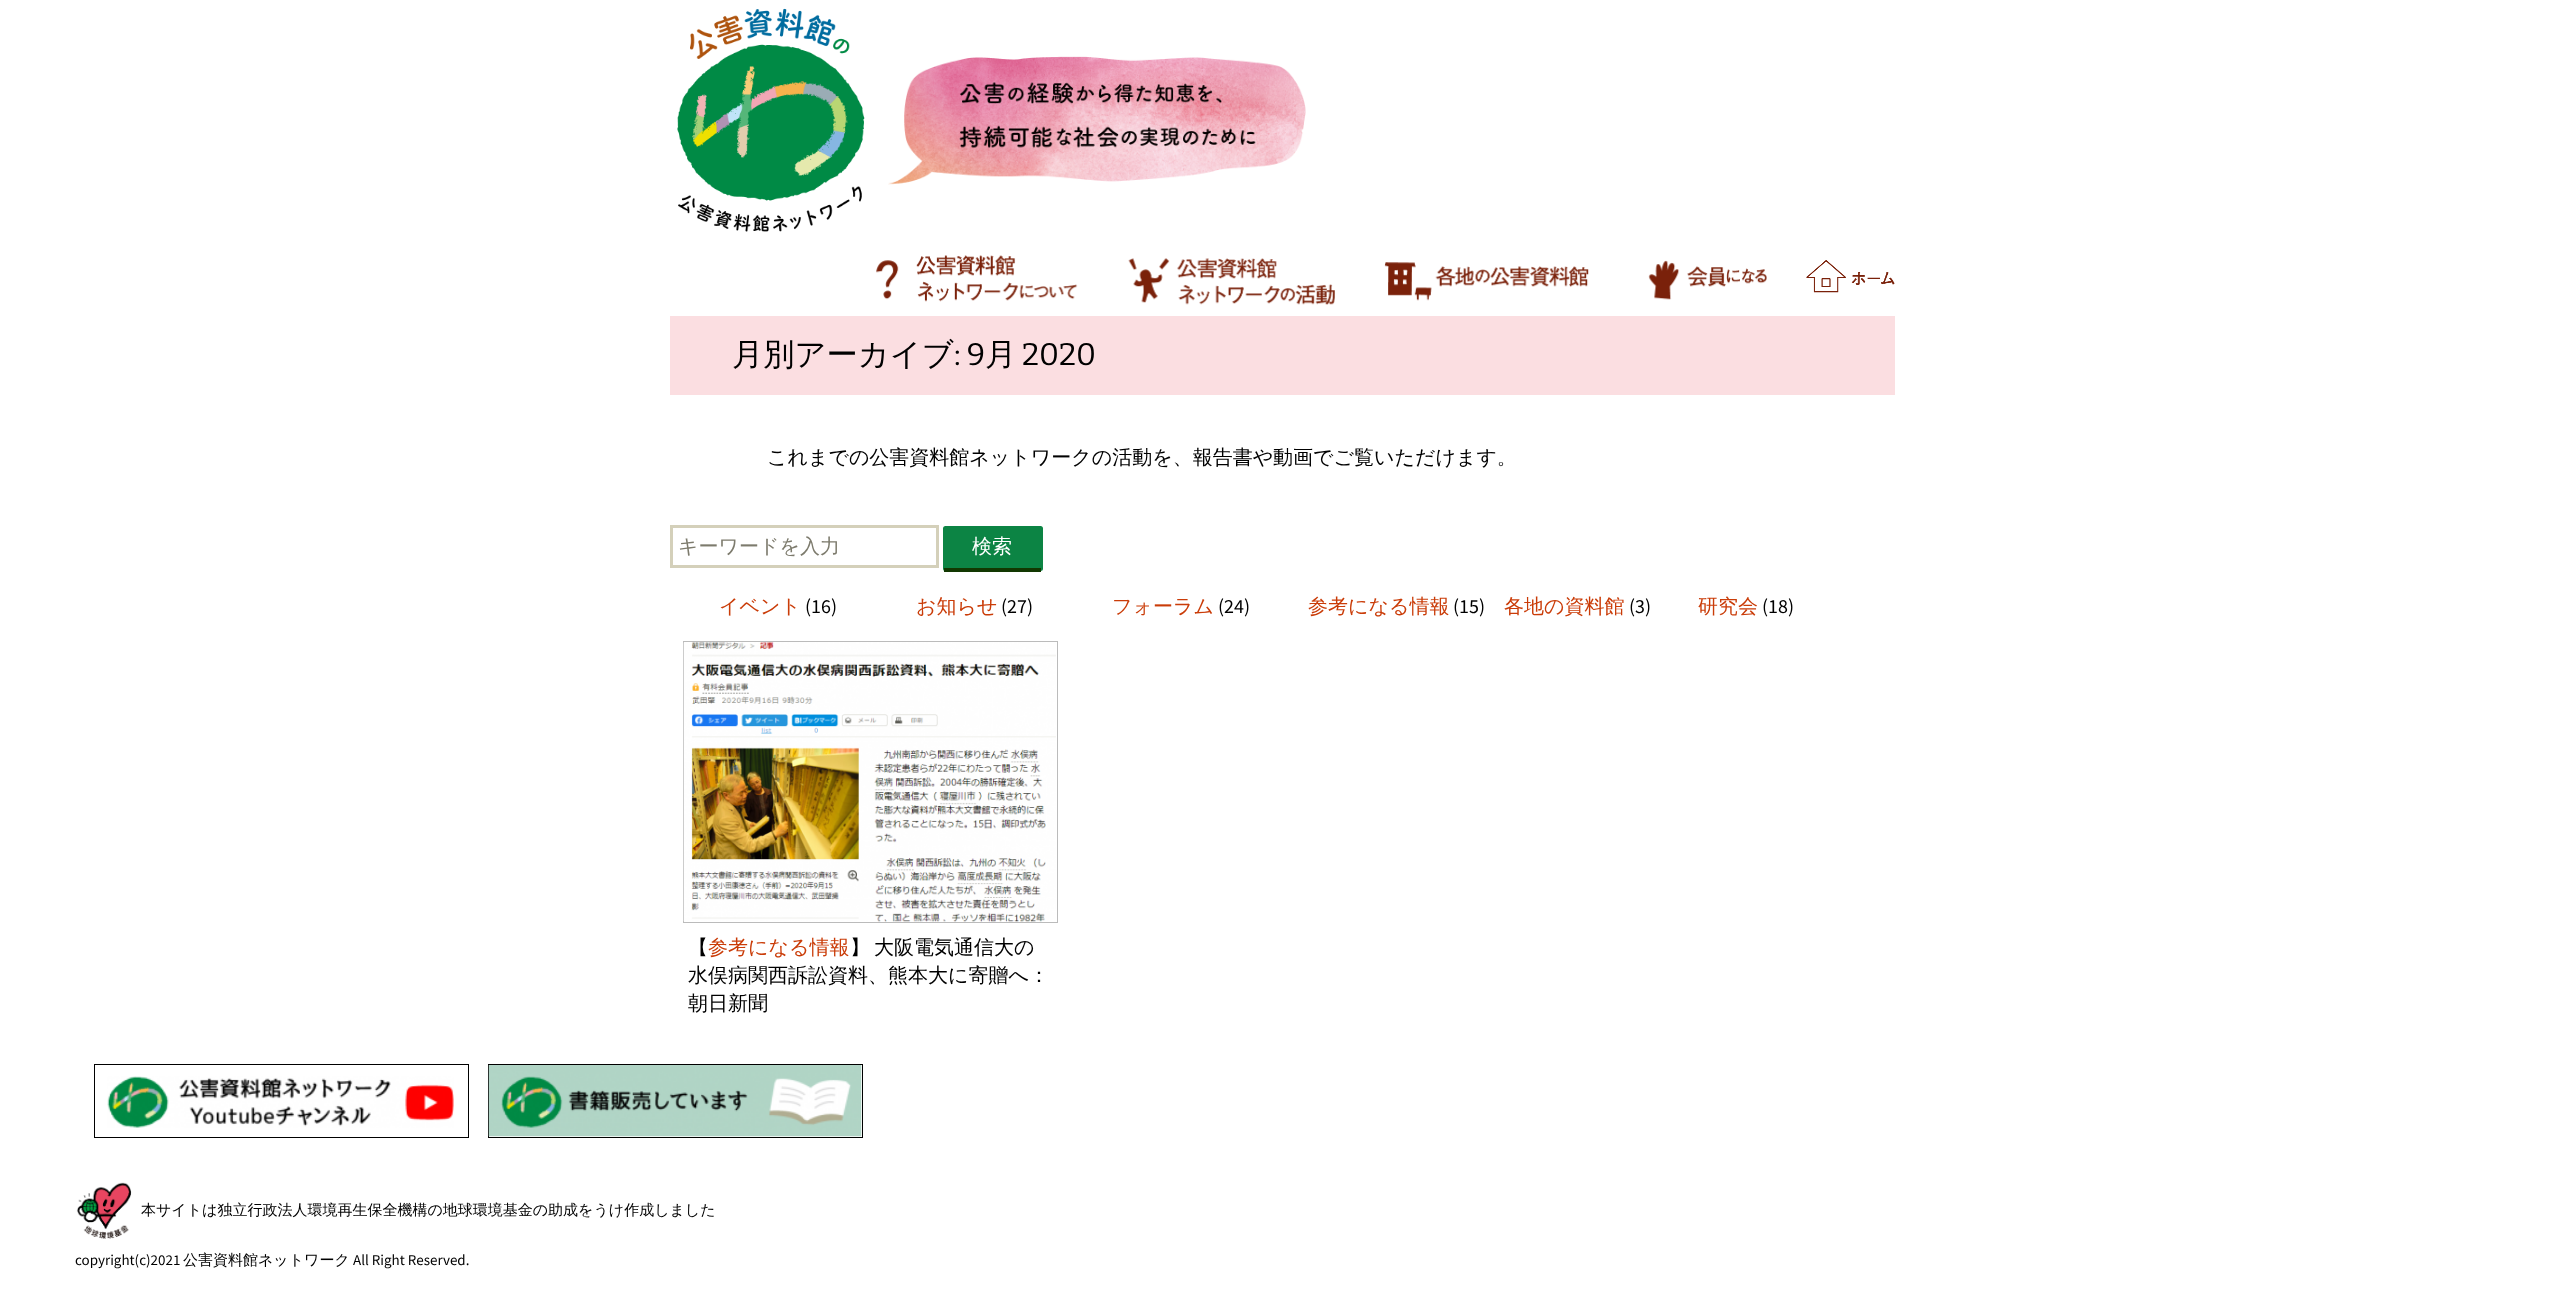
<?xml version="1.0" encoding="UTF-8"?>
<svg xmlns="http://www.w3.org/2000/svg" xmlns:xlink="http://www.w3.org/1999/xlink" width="2563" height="1314">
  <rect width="100%" height="100%" fill="#ffffff" />
  <image x="677" y="8" width="188" height="224" xlink:href="image1.png" />
  <image x="888" y="56" width="418" height="129" xlink:href="image2.png" />
  <image x="876" y="255" width="202" height="47" xlink:href="image3.png" />
  <image x="1128" y="258" width="207" height="47" xlink:href="image4.png" />
  <image x="1384" y="262" width="205" height="39" xlink:href="image5.png" />
  <image x="1648" y="260" width="119" height="40" xlink:href="image6.png" />
  <image x="1806" y="260" width="89" height="33" xlink:href="image7.png" />
  <rect x="670" y="316" width="1225" height="79" fill="#fbdee1" />
  <rect x="671.5" y="526.5" width="266" height="40" fill="none" stroke="#d4d0ba" stroke-width="3" />
  <rect x="943" y="526" width="100" height="45" rx="2.5" fill="#0c8444" />
  <rect x="944" y="568" width="97" height="4" fill="#123801" />
  <rect x="683.5" y="641.5" width="374" height="281" fill="none" stroke="#bbbbbb" />
  <image x="683" y="642" width="373" height="280" xlink:href="image8.png" />
  <rect x="94.5" y="1064.5" width="374" height="73" fill="none" stroke="#000000" />
  <rect x="488.5" y="1064.5" width="374" height="73" fill="none" stroke="#000000" />
  <image x="107" y="1076" width="347" height="52" xlink:href="image9.png" />
  <image x="488" y="1065" width="374" height="72" xlink:href="image10.png" />
  <image x="76" y="1182" width="56" height="57" xlink:href="image11.png" />
  <text x="732" y="365" style="font-family: WenQuanYi Zen Hei; font-size: 31.25px; font-weight: 500; fill: #000000">月別アーカイブ</text>
  <text x="954" y="365" style="font-family: Bitter; font-size: 31.25px; fill: #000000">: 9</text>
  <text x="985" y="365" style="font-family: WenQuanYi Zen Hei; font-size: 31.25px; font-weight: 500; fill: #000000">月</text>
  <text x="1022" y="365" style="font-family: Bitter; font-size: 31.25px; fill: #000000">2020</text>
  <text x="767" y="464" style="font-family: WenQuanYi Zen Hei; font-size: 20px; font-weight: 500; fill: #000000">これまでの公害資料館ネットワークの活動を、報告書や動画でご覧いただけます。</text>
  <text x="678" y="553" style="font-family: WenQuanYi Zen Hei; font-size: 20px; font-weight: 500; fill: #7d7b6d">キーワードを入力</text>
  <text x="972" y="553" style="font-family: WenQuanYi Zen Hei; font-size: 20px; font-weight: 500; fill: #ffffff">検索</text>
  <text x="719" y="613" style="font-family: WenQuanYi Zen Hei; font-size: 20px; font-weight: 500; fill: #ca3c08">イベント</text>
  <text x="805" y="613" style="font-family: Source Sans Pro; font-size: 20px; fill: #000000">(16)</text>
  <text x="916" y="613" style="font-family: WenQuanYi Zen Hei; font-size: 20px; font-weight: 500; fill: #ca3c08">お知らせ</text>
  <text x="1001" y="613" style="font-family: Source Sans Pro; font-size: 20px; fill: #000000">(27)</text>
  <text x="1112" y="613" style="font-family: WenQuanYi Zen Hei; font-size: 20px; font-weight: 500; fill: #ca3c08">フォーラム</text>
  <text x="1218" y="613" style="font-family: Source Sans Pro; font-size: 20px; fill: #000000">(24)</text>
  <text x="1308" y="613" style="font-family: WenQuanYi Zen Hei; font-size: 20px; font-weight: 500; fill: #ca3c08">参考になる情報</text>
  <text x="1453" y="613" style="font-family: Source Sans Pro; font-size: 20px; fill: #000000">(15)</text>
  <text x="1504" y="613" style="font-family: WenQuanYi Zen Hei; font-size: 20px; font-weight: 500; fill: #ca3c08">各地の資料館</text>
  <text x="1629" y="613" style="font-family: Source Sans Pro; font-size: 20px; fill: #000000">(3)</text>
  <text x="1698" y="613" style="font-family: WenQuanYi Zen Hei; font-size: 20px; font-weight: 500; fill: #ca3c08">研究会</text>
  <text x="1762" y="613" style="font-family: Source Sans Pro; font-size: 20px; fill: #000000">(18)</text>
  <text x="688" y="954" style="font-family: WenQuanYi Zen Hei; font-size: 20px; font-weight: 500; fill: #000000">【</text>
  <text x="708" y="954" style="font-family: WenQuanYi Zen Hei; font-size: 20px; font-weight: 500; fill: #ca3c08">参考になる情報</text>
  <text x="850" y="954" style="font-family: WenQuanYi Zen Hei; font-size: 20px; font-weight: 500; fill: #000000">】</text>
  <text x="874" y="954" style="font-family: WenQuanYi Zen Hei; font-size: 20px; font-weight: 500; fill: #000000">大阪電気通信大の</text>
  <text x="688" y="982" style="font-family: WenQuanYi Zen Hei; font-size: 20px; font-weight: 500; fill: #000000">水俣病関西訴訟資料、熊本大に寄贈へ：</text>
  <text x="688" y="1010" style="font-family: WenQuanYi Zen Hei; font-size: 20px; font-weight: 500; fill: #000000">朝日新聞</text>
  <text x="141" y="1215" style="font-family: WenQuanYi Zen Hei; font-size: 15px; font-weight: 500; fill: #000000">本サイトは独立行政法人環境再生保全機構の地球環境基金の助成をうけ作成しました</text>
  <text x="75" y="1265" style="font-family: Source Sans Pro; font-size: 15px; fill: #000000">copyright(c)2021</text>
  <text x="183" y="1265" style="font-family: WenQuanYi Zen Hei; font-size: 15px; font-weight: 500; fill: #000000">公害資料館ネットワーク</text>
  <text x="353" y="1265" style="font-family: Source Sans Pro; font-size: 15px; fill: #000000">All Right Reserved.</text>
</svg>
